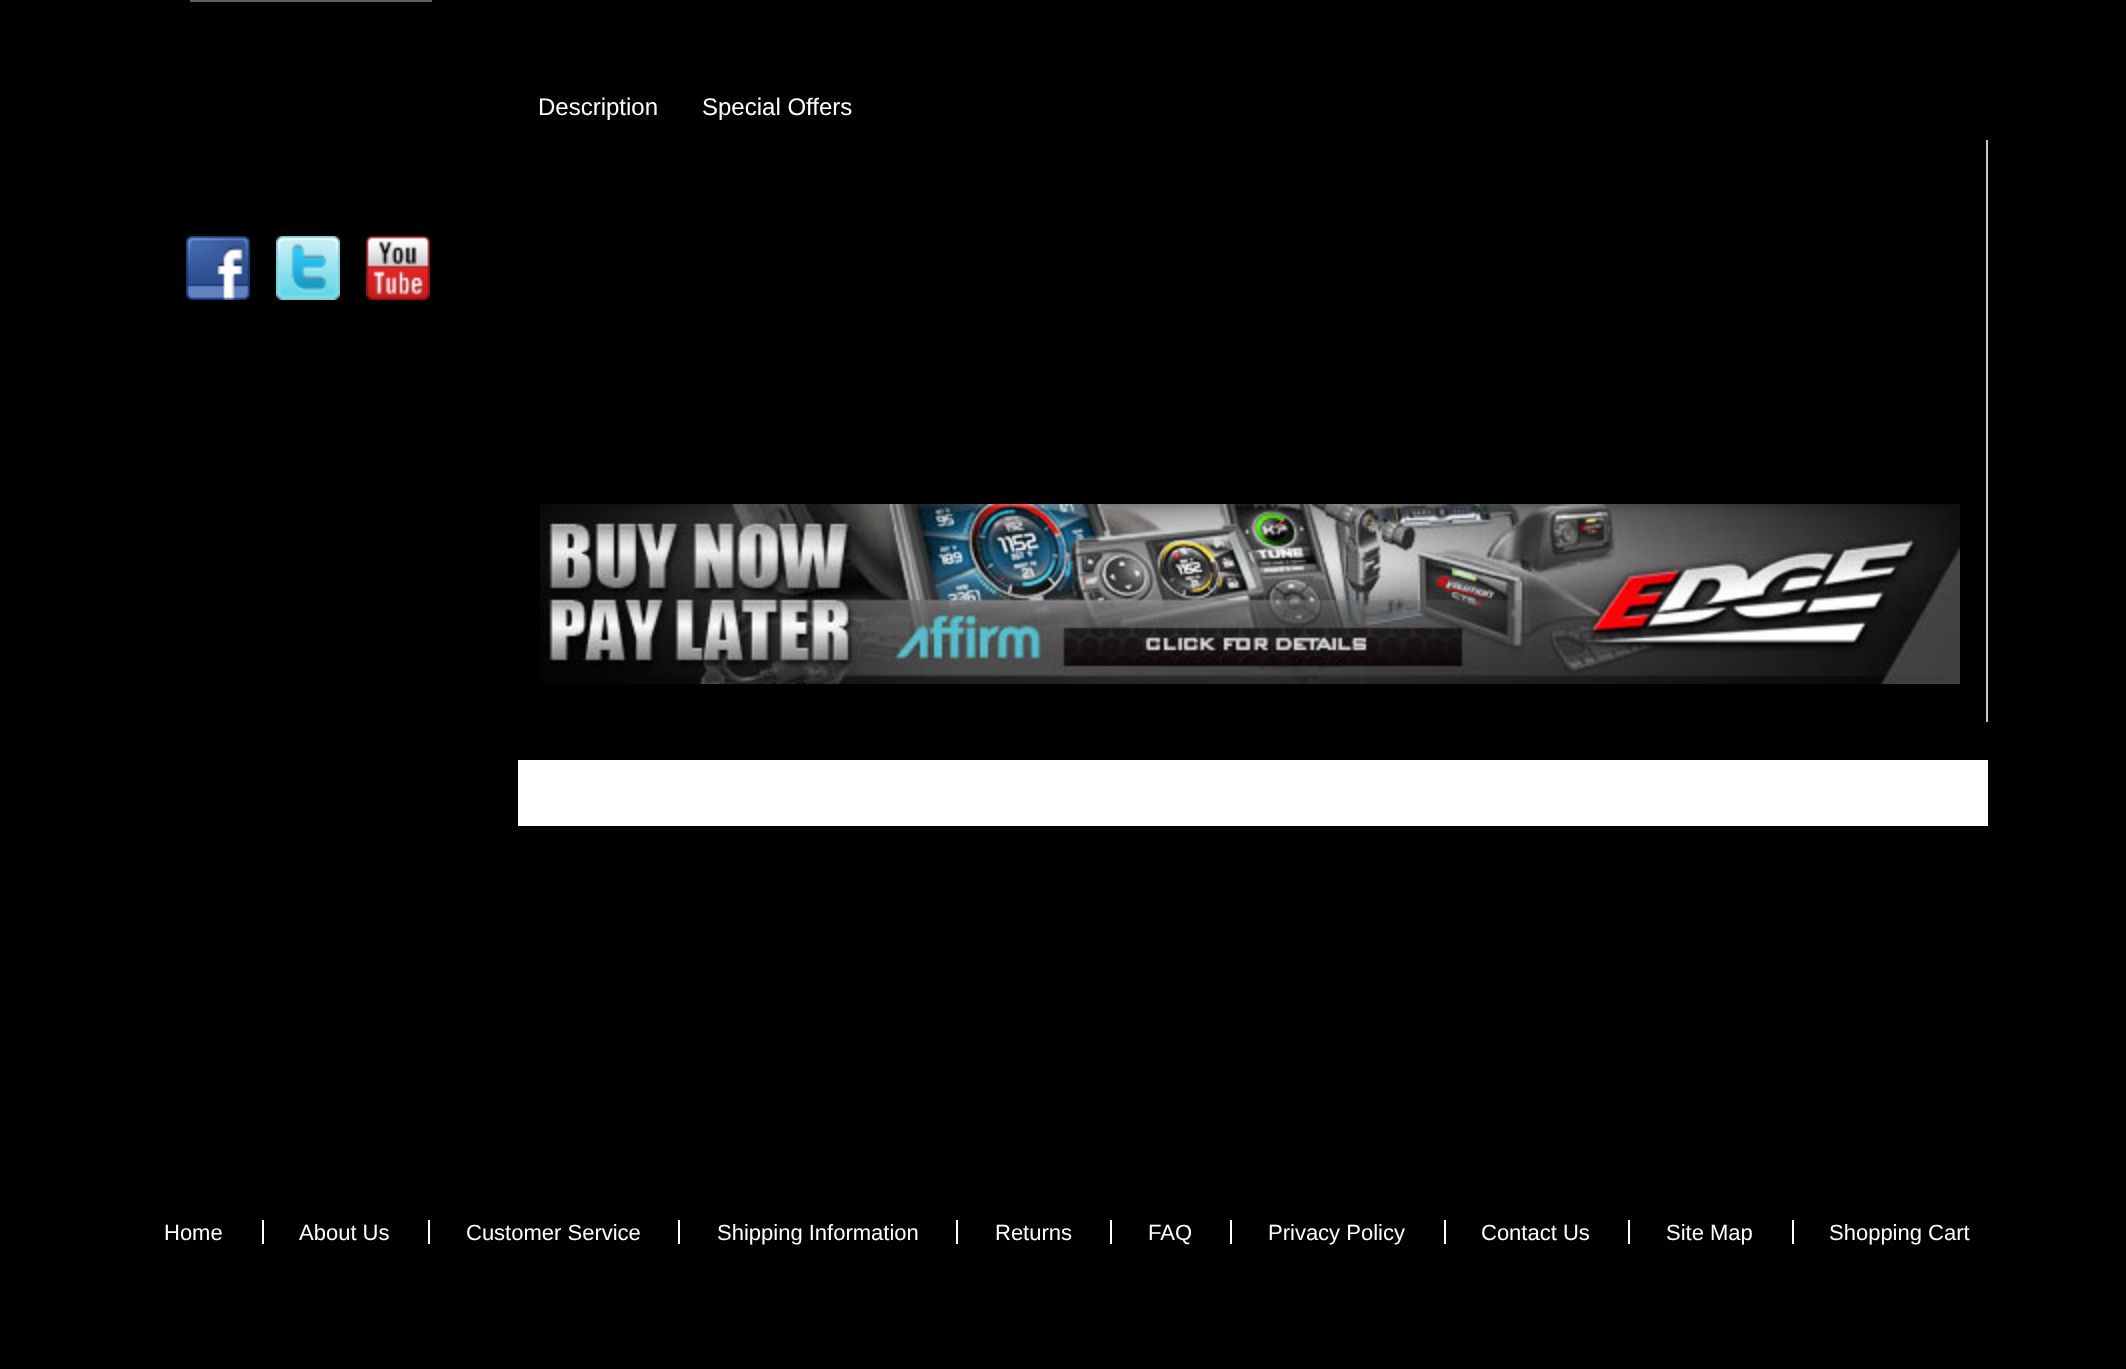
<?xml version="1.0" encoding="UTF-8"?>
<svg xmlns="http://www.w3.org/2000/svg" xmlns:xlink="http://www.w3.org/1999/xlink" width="2126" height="1369">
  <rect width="100%" height="100%" fill="#000000" />
  <rect x="190" width="242" height="2" fill="#616161" />
  <image x="186" y="236" width="64" height="64" xlink:href="image1.png" />
  <image x="276" y="236" width="64" height="64" xlink:href="image2.png" />
  <image x="366" y="236" width="64" height="64" xlink:href="image3.png" />
  <rect x="1986" y="140" width="2" height="584" fill="#c8c8c8" />
  <rect x="1986" y="722" width="2" height="2" fill="#000000" />
  <image x="540" y="504" width="1420" height="180" xlink:href="image4.png" />
  <rect x="518" y="760" width="1470" height="66" fill="#ffffff" />
  <rect x="262" y="1220" width="2" height="24" fill="#ffffff" />
  <rect x="428" y="1220" width="2" height="24" fill="#ffffff" />
  <rect x="678" y="1220" width="2" height="24" fill="#ffffff" />
  <rect x="956" y="1220" width="2" height="24" fill="#ffffff" />
  <rect x="1110" y="1220" width="2" height="24" fill="#ffffff" />
  <rect x="1230" y="1220" width="2" height="24" fill="#ffffff" />
  <rect x="1444" y="1220" width="2" height="24" fill="#ffffff" />
  <rect x="1628" y="1220" width="2" height="24" fill="#ffffff" />
  <rect x="1792" y="1220" width="2" height="24" fill="#ffffff" />
  <text x="538" y="115" style="font-family: Liberation Sans; font-size: 24px; fill: #ffffff">Description</text>
  <text x="702" y="115" style="font-family: Liberation Sans; font-size: 24px; fill: #ffffff">Special Offers</text>
  <text x="164" y="1240" style="font-family: Liberation Sans; font-size: 22px; fill: #ffffff">Home</text>
  <text x="299" y="1240" style="font-family: Liberation Sans; font-size: 22px; fill: #ffffff">About Us</text>
  <text x="466" y="1240" style="font-family: Liberation Sans; font-size: 22px; fill: #ffffff">Customer Service</text>
  <text x="717" y="1240" style="font-family: Liberation Sans; font-size: 22px; fill: #ffffff">Shipping Information</text>
  <text x="995" y="1240" style="font-family: Liberation Sans; font-size: 22px; fill: #ffffff">Returns</text>
  <text x="1148" y="1240" style="font-family: Liberation Sans; font-size: 22px; fill: #ffffff">FAQ</text>
  <text x="1268" y="1240" style="font-family: Liberation Sans; font-size: 22px; fill: #ffffff">Privacy Policy</text>
  <text x="1481" y="1240" style="font-family: Liberation Sans; font-size: 22px; fill: #ffffff">Contact Us</text>
  <text x="1666" y="1240" style="font-family: Liberation Sans; font-size: 22px; fill: #ffffff">Site Map</text>
  <text x="1829" y="1240" style="font-family: Liberation Sans; font-size: 22px; fill: #ffffff">Shopping Cart</text>
</svg>
